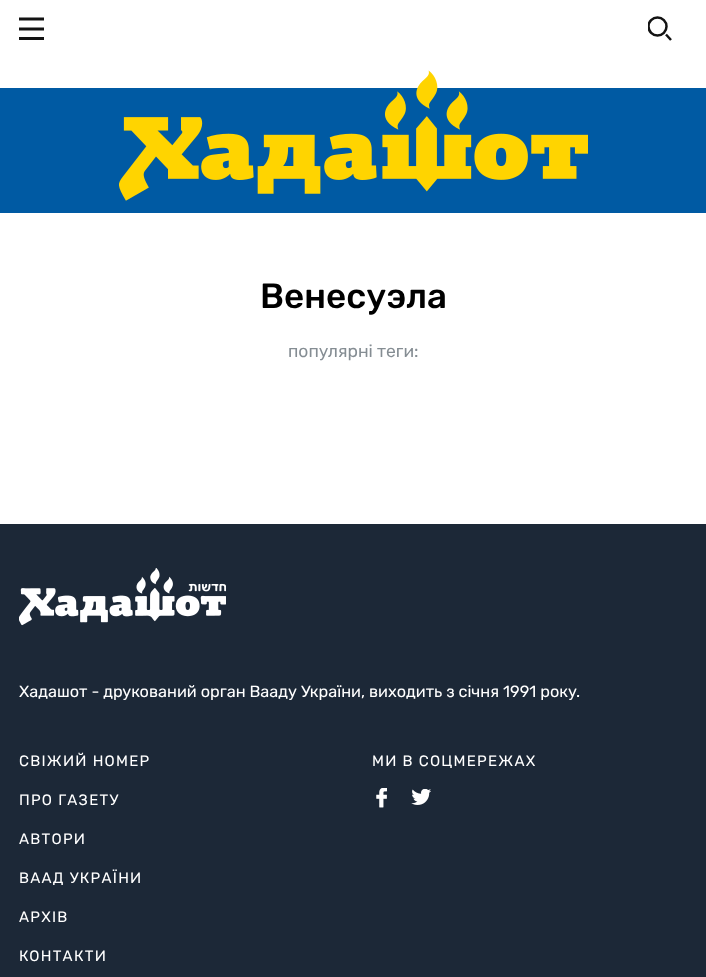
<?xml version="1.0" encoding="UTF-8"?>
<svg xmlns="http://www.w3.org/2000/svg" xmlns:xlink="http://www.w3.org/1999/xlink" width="706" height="977">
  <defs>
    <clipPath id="clip1"><rect x="648" y="16" width="25" height="25" /></clipPath>
  </defs>
  <rect width="100%" height="100%" fill="#ffffff" />
  <path d="M 44 29 h -25 m 25 -10 h -25 m 25 19.5 h -25" fill="none" stroke="#131313" stroke-width="2.8" />
  <g clip-path="url(#clip1)">
    <circle cx="657.5" cy="26.5" r="9" fill="none" stroke="#131313" stroke-width="2.5" />
  </g>
  <path d="M 666 34.5 l 5 5.5" fill="none" stroke="#131313" stroke-width="2.5" />
  <rect y="88" width="706" height="125" fill="#005aa3" />
  <image x="119" y="70" width="469" height="131" xlink:href="image1.png" />
  <rect y="524" width="706" height="453" fill="#1c2837" />
  <image x="19" y="568" width="207" height="58" xlink:href="image2.png" />
  <image x="376" y="788" width="11" height="20" xlink:href="image3.png" />
  <image x="411" y="789" width="20" height="16" xlink:href="image4.png" />
  <text x="260" y="308" style="font-family: Rubik; font-size: 35px; font-weight: 500; fill: #000000">Венесуэла</text>
  <text x="288" y="357" style="font-family: Rubik; font-size: 17.5px; fill: #858d93">популярні теги:</text>
  <text x="19" y="697" style="font-family: Rubik; font-size: 16.25px; fill: #ffffff">Хадашот - друкований орган Вааду України, виходить з січня 1991 року.</text>
  <text x="19" y="766" style="font-family: Rubik; font-size: 15px; letter-spacing: 1.25px; fill: #ffffff">СВІЖИЙ НОМЕР</text>
  <text x="19" y="805" style="font-family: Rubik; font-size: 15px; letter-spacing: 1.25px; fill: #ffffff">ПРО ГАЗЕТУ</text>
  <text x="19" y="844" style="font-family: Rubik; font-size: 15px; letter-spacing: 1.25px; fill: #ffffff">АВТОРИ</text>
  <text x="19" y="883" style="font-family: Rubik; font-size: 15px; letter-spacing: 1.25px; fill: #ffffff">ВААД УКРАЇНИ</text>
  <text x="19" y="922" style="font-family: Rubik; font-size: 15px; letter-spacing: 1.25px; fill: #ffffff">АРХІВ</text>
  <text x="19" y="961" style="font-family: Rubik; font-size: 15px; letter-spacing: 1.25px; fill: #ffffff">КОНТАКТИ</text>
  <text x="372" y="766" style="font-family: Rubik; font-size: 15px; letter-spacing: 1.25px; fill: #ffffff">МИ В СОЦМЕРЕЖАХ</text>
</svg>
